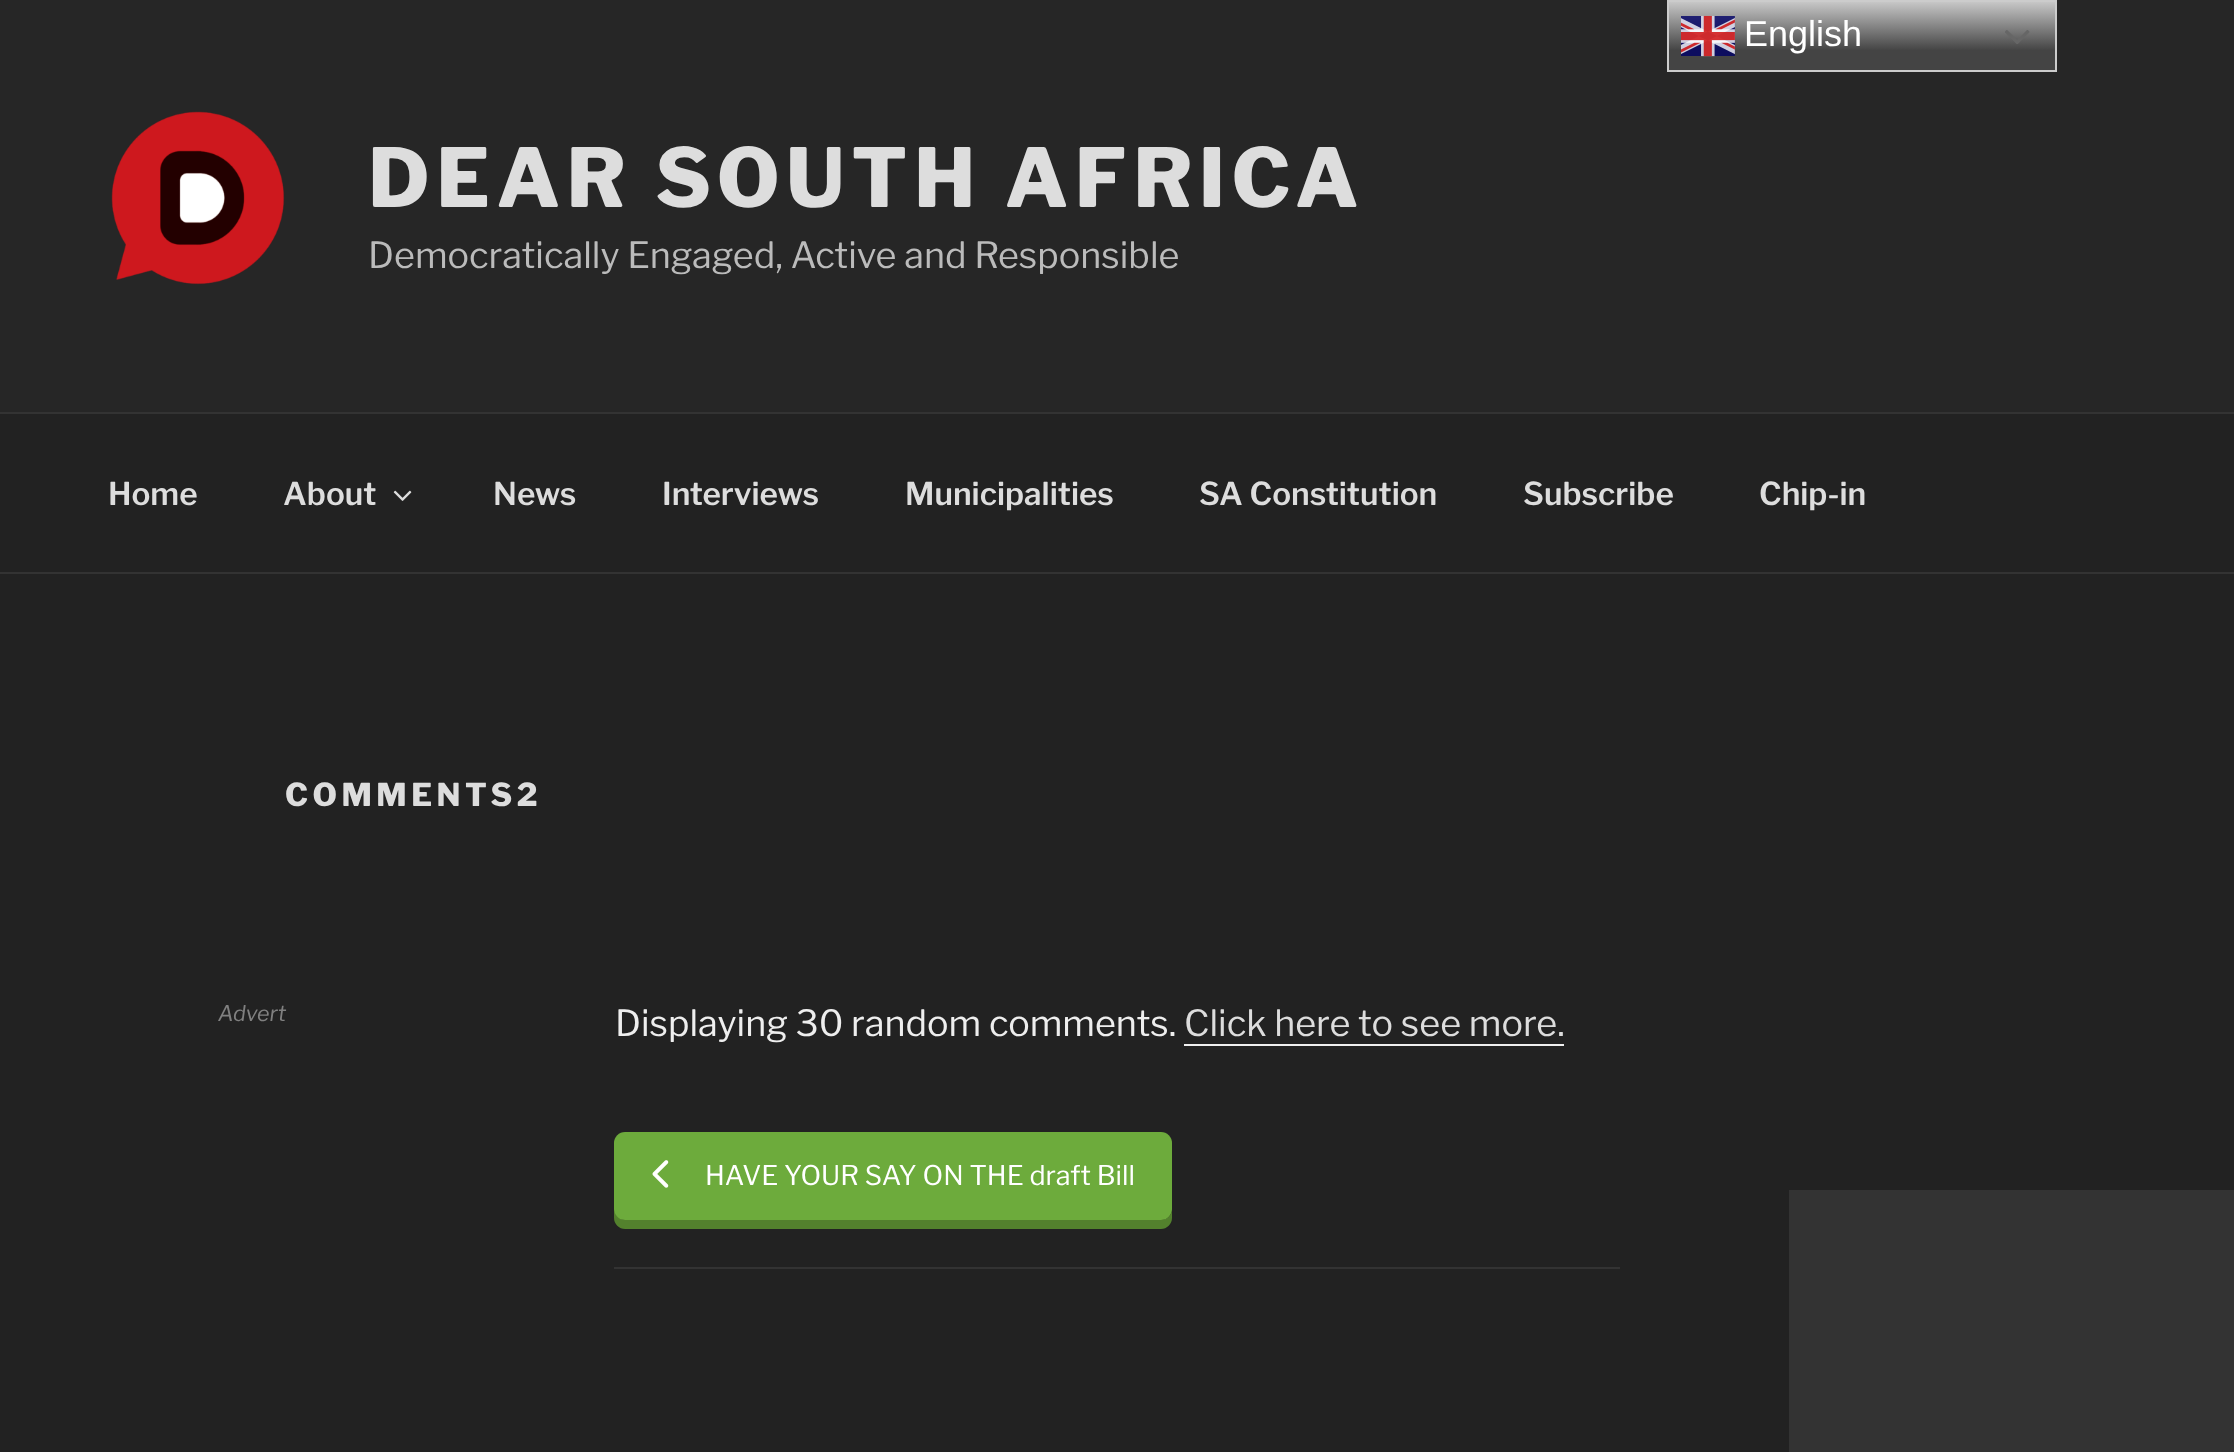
<?xml version="1.0" encoding="UTF-8"?>
<svg xmlns="http://www.w3.org/2000/svg" xmlns:xlink="http://www.w3.org/1999/xlink" width="2234" height="1452">
  <defs>
    <linearGradient id="g1" gradientUnits="userSpaceOnUse" x1="1862" y1="0" x2="1862" y2="72"><stop offset="0" stop-color="#cccccc" /><stop offset="0.7" stop-color="#444444" /></linearGradient>
  </defs>
  <rect width="100%" height="100%" fill="#222222" />
  <rect width="2234" height="412" fill="#262626" />
  <rect x="1669" y="2" width="386" height="68" fill="url(#g1)" />
  <rect x="1668" y="1" width="388" height="70" fill="none" stroke="#cccccc" stroke-width="2" />
  <image x="1681" y="15" width="54" height="42" xlink:href="image1.png" />
  <image x="2005" y="30" width="25" height="14" xlink:href="image2.png" />
  <image x="111" y="111" width="174" height="174" xlink:href="image3.png" />
  <rect y="412" width="2234" height="2" fill="#333333" />
  <rect y="572" width="2234" height="2" fill="#333333" />
  <image x="393" y="490" width="19" height="11" xlink:href="image4.png" />
  <rect x="1184" y="1044" width="380" height="2" fill="#f0f0f0" />
  <path d="M 614 1150 v 68 c 0 6 5 11 11 11 h 536 c 6 0 11 -5 11 -11 v -7 c -1 5 -6 9 -11 9 h -535 c -7 0 -12 -6 -12 -12 z" fill="#53812d" />
  <rect x="614" y="1132" width="558" height="88" rx="11" fill="#6dab3c" />
  <image x="652" y="1160" width="17" height="28" xlink:href="image5.png" />
  <rect x="614" y="1267" width="1006" height="2" fill="#333333" />
  <rect x="1789" y="1190" width="445" height="262" fill="#333333" />
  <text x="1744" y="46" style="font-family: Liberation Sans; font-size: 36px; fill: #ffffff">English</text>
  <text x="368" y="207" style="font-family: Libre Franklin; font-size: 81px; font-weight: 100; letter-spacing: 6.5px; fill: #dddddd">DEAR SOUTH AFRICA</text>
  <text x="368" y="268" style="font-family: 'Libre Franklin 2'; font-size: 36px; font-weight: 100; fill: #bbbbbb">Democratically Engaged, Active and Responsible</text>
  <text x="108" y="505" style="font-family: 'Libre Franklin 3'; font-size: 31.5px; font-weight: 100; fill: #dddddd">Home</text>
  <text x="283" y="505" style="font-family: 'Libre Franklin 3'; font-size: 31.5px; font-weight: 100; fill: #dddddd">About</text>
  <text x="493" y="505" style="font-family: 'Libre Franklin 3'; font-size: 31.5px; font-weight: 100; fill: #dddddd">News</text>
  <text x="662" y="505" style="font-family: 'Libre Franklin 3'; font-size: 31.5px; font-weight: 100; fill: #dddddd">Interviews</text>
  <text x="905" y="505" style="font-family: 'Libre Franklin 3'; font-size: 31.5px; font-weight: 100; fill: #dddddd">Municipalities</text>
  <text x="1199" y="505" style="font-family: 'Libre Franklin 3'; font-size: 31.5px; font-weight: 100; fill: #dddddd">SA Constitution</text>
  <text x="1523" y="505" style="font-family: 'Libre Franklin 3'; font-size: 31.5px; font-weight: 100; fill: #dddddd">Subscribe</text>
  <text x="1759" y="505" style="font-family: 'Libre Franklin 3'; font-size: 31.5px; font-weight: 100; fill: #dddddd">Chip-in</text>
  <text x="285" y="806" style="font-family: Libre Franklin; font-size: 31.5px; font-weight: 100; letter-spacing: 4.5px; fill: #dddddd">COMMENTS2</text>
  <text x="218" y="1021" style="font-family: Libre Franklin; font-size: 21.5px; font-weight: 100; font-style: italic; fill: #808080">Advert</text>
  <text x="615" y="1036" style="font-family: 'Libre Franklin 2'; font-size: 36px; font-weight: 100; fill: #eeeeee">Displaying 30 random comments.</text>
  <text x="1184" y="1036" style="font-family: 'Libre Franklin 2'; font-size: 36px; font-weight: 100; fill: #dddddd">Click here to see more.</text>
  <text x="705" y="1185" style="font-family: 'Libre Franklin 2'; font-size: 27px; font-weight: 100; fill: #ffffff">HAVE YOUR SAY ON THE draft Bill</text>
</svg>
